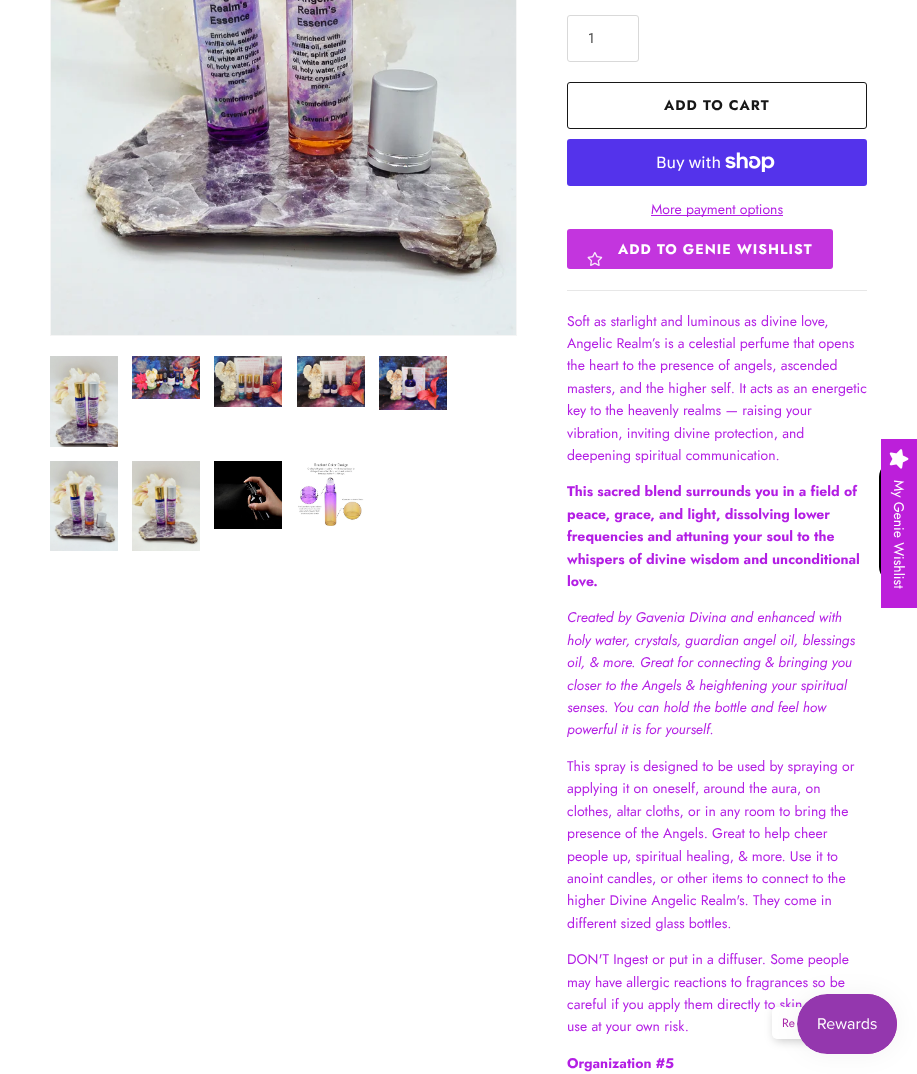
<?xml version="1.0" encoding="UTF-8"?>
<svg xmlns="http://www.w3.org/2000/svg" xmlns:xlink="http://www.w3.org/1999/xlink" width="917" height="1074">
  <rect width="100%" height="100%" fill="#ffffff" />
  <rect x="50.5" y="-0.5" width="466" height="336" fill="none" stroke="#f5f5f5" />
  <image x="51" y="0" width="465" height="335" xlink:href="image1.png" />
  <image x="50" y="356" width="68" height="91" xlink:href="image2.png" />
  <image x="132" y="356" width="68" height="43" xlink:href="image3.png" />
  <image x="214" y="356" width="68" height="51" xlink:href="image4.png" />
  <image x="297" y="356" width="68" height="51" xlink:href="image5.png" />
  <image x="379" y="356" width="68" height="54" xlink:href="image6.png" />
  <image x="50" y="461" width="68" height="90" xlink:href="image7.png" />
  <image x="132" y="461" width="68" height="90" xlink:href="image8.png" />
  <image x="214" y="461" width="68" height="68" xlink:href="image9.png" />
  <image x="298" y="463" width="66" height="63" xlink:href="image10.png" />
  <rect x="567.5" y="15.5" width="71" height="46" rx="2.5" fill="none" stroke="#d9d9d9" />
  <rect x="567.5" y="82.5" width="299" height="46" rx="2.5" fill="none" stroke="#171717" />
  <rect x="567" y="139" width="300" height="47" rx="3" fill="#5433eb" />
  <image x="725" y="152" width="50" height="20" xlink:href="image11.png" />
  <rect x="651" y="215" width="132" height="1" fill="#b31ee4" />
  <rect x="567" y="229" width="266" height="40" rx="3" fill="#c335de" />
  <image x="587" y="252" width="16" height="14" xlink:href="image12.png" />
  <rect x="567" y="290" width="300" height="1" fill="#e7e7e7" />
  <path d="M 879 567 v -90 c 0 -9 7 -16 16 -16 h 22 v 122 h -22 c -9 0 -16 -8 -16 -16 z" fill="#000000" />
  <rect x="881" y="439" width="36" height="169" fill="#bc1fda" />
  <image x="889" y="449" width="20" height="20" xlink:href="image13.png" />
  <circle cx="867" cy="1024" r="30" fill="#a827a8" />
  <rect x="774" y="1009" width="62" height="32" rx="5" fill="#000000" fill-opacity="0.2" filter="blur(5px)" />
  <text x="588" y="43" style="font-family: Jost; font-size: 14px; fill: #444444">1</text>
  <text x="664" y="110" style="font-family: Jost; font-size: 14px; font-weight: bold; letter-spacing: 1px; fill: #171717">ADD TO CART</text>
  <text x="656" y="168" style="font-family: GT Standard; font-size: 16px; fill: #ffffff">Buy with</text>
  <text x="651" y="214" style="font-family: Jost; font-size: 14px; fill: #b31ee4">More payment options</text>
  <text x="618" y="254" style="font-family: Jost; font-size: 14px; font-weight: bold; letter-spacing: 1px; fill: #ffffff">ADD TO GENIE WISHLIST</text>
  <text x="567" y="326" style="font-family: Jost; font-size: 14px; fill: #b31ee4">Soft as starlight and luminous as divine love,</text>
  <text x="567" y="348" style="font-family: Jost; font-size: 14px; fill: #b31ee4">Angelic Realm’s is a celestial perfume that opens</text>
  <text x="567" y="370" style="font-family: Jost; font-size: 14px; fill: #b31ee4">the heart to the presence of angels, ascended</text>
  <text x="567" y="393" style="font-family: Jost; font-size: 14px; fill: #b31ee4">masters, and the higher self. It acts as an energetic</text>
  <text x="567" y="415" style="font-family: Jost; font-size: 14px; fill: #b31ee4">key to the heavenly realms — raising your</text>
  <text x="567" y="438" style="font-family: Jost; font-size: 14px; fill: #b31ee4">vibration, inviting divine protection, and</text>
  <text x="567" y="460" style="font-family: Jost; font-size: 14px; fill: #b31ee4">deepening spiritual communication.</text>
  <text x="567" y="496" style="font-family: Jost; font-size: 14px; font-weight: bold; fill: #b31ee4">This sacred blend surrounds you in a field of</text>
  <text x="567" y="519" style="font-family: Jost; font-size: 14px; font-weight: bold; fill: #b31ee4">peace, grace, and light, dissolving lower</text>
  <text x="567" y="541" style="font-family: Jost; font-size: 14px; font-weight: bold; fill: #b31ee4">frequencies and attuning your soul to the</text>
  <text x="567" y="564" style="font-family: Jost; font-size: 14px; font-weight: bold; fill: #b31ee4">whispers of divine wisdom and unconditional</text>
  <text x="567" y="586" style="font-family: Jost; font-size: 14px; font-weight: bold; fill: #b31ee4">love.</text>
  <text x="567" y="622" style="font-family: Jost; font-size: 14px; font-style: italic; fill: #b31ee4">Created by Gavenia Divina and enhanced with</text>
  <text x="567" y="645" style="font-family: Jost; font-size: 14px; font-style: italic; fill: #b31ee4">holy water, crystals, guardian angel oil, blessings</text>
  <text x="567" y="667" style="font-family: Jost; font-size: 14px; font-style: italic; fill: #b31ee4">oil, &amp; more. Great for connecting &amp; bringing you</text>
  <text x="567" y="690" style="font-family: Jost; font-size: 14px; font-style: italic; fill: #b31ee4">closer to the Angels &amp; heightening your spiritual</text>
  <text x="567" y="712" style="font-family: Jost; font-size: 14px; font-style: italic; fill: #b31ee4">senses. You can hold the bottle and feel how</text>
  <text x="567" y="734" style="font-family: Jost; font-size: 14px; font-style: italic; fill: #b31ee4">powerful it is for yourself.</text>
  <text x="567" y="771" style="font-family: Jost; font-size: 14px; fill: #b31ee4">This spray is designed to be used by spraying or</text>
  <text x="567" y="793" style="font-family: Jost; font-size: 14px; fill: #b31ee4">applying it on oneself, around the aura, on</text>
  <text x="567" y="816" style="font-family: Jost; font-size: 14px; fill: #b31ee4">clothes, altar cloths, or in any room to bring the</text>
  <text x="567" y="838" style="font-family: Jost; font-size: 14px; fill: #b31ee4">presence of the Angels. Great to help cheer</text>
  <text x="567" y="861" style="font-family: Jost; font-size: 14px; fill: #b31ee4">people up, spiritual healing, &amp; more. Use it to</text>
  <text x="567" y="883" style="font-family: Jost; font-size: 14px; fill: #b31ee4">anoint candles, or other items to connect to the</text>
  <text x="567" y="905" style="font-family: Jost; font-size: 14px; fill: #b31ee4">higher Divine Angelic Realm's. They come in</text>
  <text x="567" y="928" style="font-family: Jost; font-size: 14px; fill: #b31ee4">different sized glass bottles.</text>
  <text x="567" y="964" style="font-family: Jost; font-size: 14px; fill: #b31ee4">DON'T Ingest or put in a diffuser. Some people</text>
  <text x="567" y="987" style="font-family: Jost; font-size: 14px; fill: #b31ee4">may have allergic reactions to fragrances so be</text>
  <text x="567" y="1009" style="font-family: Jost; font-size: 14px; fill: #b31ee4">careful if you apply them directly to skin</text>
  <text x="567" y="1031" style="font-family: Jost; font-size: 14px; fill: #b31ee4">use at your own risk.</text>
  <text x="567" y="1068" style="font-family: Jost; font-size: 14px; font-weight: bold; fill: #b31ee4">Organization #5</text>
  <text x="894" y="480" transform="rotate(90 894 480)" style="font-family: Jost; font-size: 14px; fill: #ffffff">My Genie Wishlist</text>
  <rect x="772" y="1007" width="62" height="32" rx="5" fill="#ffffff" />
  <rect x="797" y="994" width="100" height="60" rx="30" fill="#000000" fill-opacity="0.05" filter="blur(12.5px)" />
  <image x="797" y="994" width="100" height="60" xlink:href="image14.png" />
  <text x="782" y="1027" style="font-family: Jost; font-size: 12px; fill: #a827a8">Re</text>
</svg>
